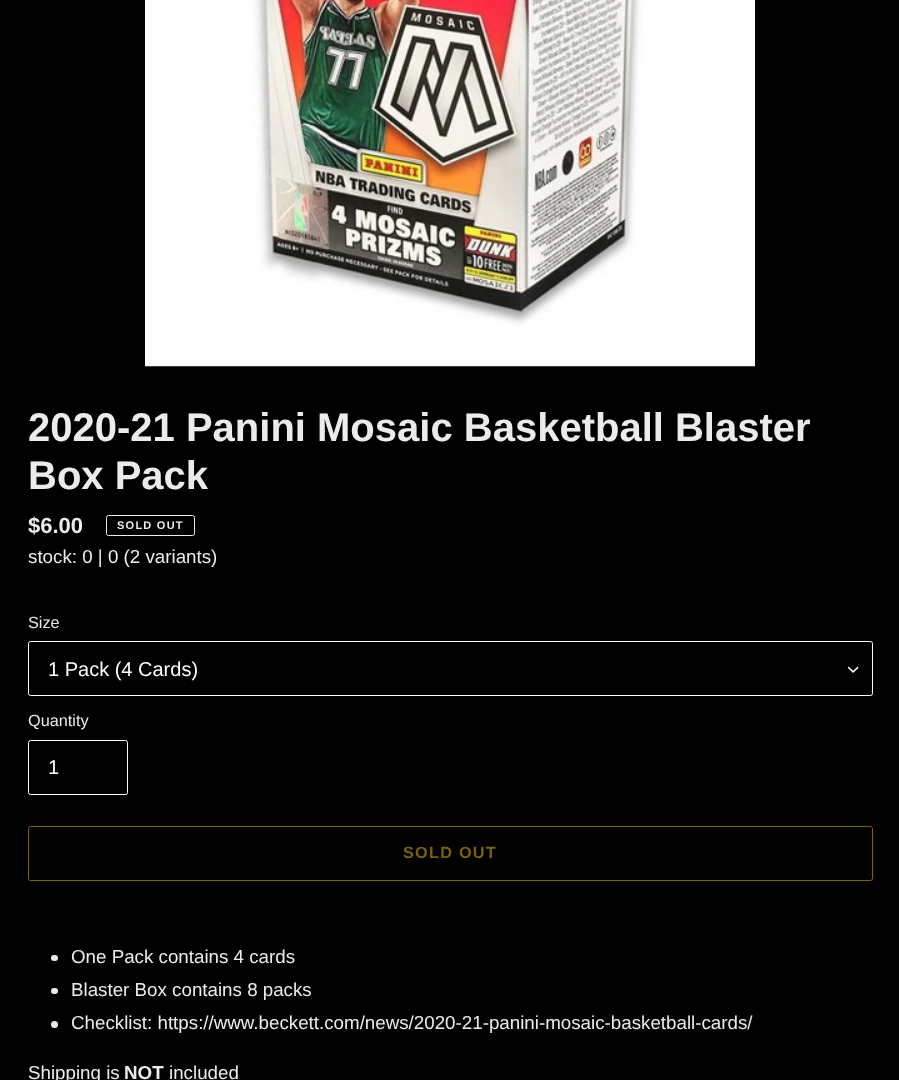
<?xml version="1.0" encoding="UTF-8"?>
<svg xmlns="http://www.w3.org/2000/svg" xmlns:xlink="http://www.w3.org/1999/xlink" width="899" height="1080">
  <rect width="100%" height="100%" fill="#000000" />
  <image x="145" y="0" width="610" height="367" xlink:href="image1.png" />
  <rect x="106.5" y="515.5" width="88" height="20" rx="2" fill="none" stroke="#ebebeb" />
  <image x="848" y="666" width="11" height="7" xlink:href="image2.png" />
  <rect x="28.5" y="641.5" width="844" height="54" rx="2" fill="none" stroke="#ffffff" />
  <rect x="28.5" y="740.5" width="99" height="54" rx="2" fill="none" stroke="#ffffff" />
  <rect x="28.5" y="826.5" width="844" height="54" rx="2" fill="none" stroke="#79620e" />
  <rect x="51" y="955" width="7" height="6" rx="3" fill="#ebebeb" />
  <rect x="51" y="988" width="7" height="6" rx="3" fill="#ebebeb" />
  <circle cx="54.5" cy="1024.5" r="3.5" fill="#ebebeb" />
  <text x="28" y="441" style="font-family: Liberation Sans; font-size: 40px; font-weight: bold; fill: #ebebeb">2020-21 Panini Mosaic Basketball Blaster</text>
  <text x="28" y="489" style="font-family: Liberation Sans; font-size: 40px; font-weight: bold; fill: #ebebeb">Box Pack</text>
  <text x="28" y="533" style="font-family: Liberation Sans; font-size: 22px; font-weight: bold; fill: #ebebeb">$6.00</text>
  <text x="117" y="529" style="font-family: Liberation Sans; font-size: 11px; font-weight: bold; letter-spacing: 1.25px; fill: #ebebeb">SOLD OUT</text>
  <text x="28" y="563" style="font-family: Liberation Sans; font-size: 18.75px; fill: #ebebeb">stock: 0 | 0 (2 variants)</text>
  <text x="28" y="628" style="font-family: Liberation Sans; font-size: 16.25px; fill: #ebebeb">Size</text>
  <text x="48" y="676" style="font-family: Liberation Sans; font-size: 20px; fill: #ffffff">1 Pack (4 Cards)</text>
  <text x="28" y="726" style="font-family: Liberation Sans; font-size: 16.25px; fill: #ebebeb">Quantity</text>
  <text x="48" y="774" style="font-family: Liberation Sans; font-size: 20px; fill: #ffffff">1</text>
  <text x="403" y="858" style="font-family: Liberation Sans; font-size: 16.25px; font-weight: bold; letter-spacing: 1.25px; fill: #79620e">SOLD OUT</text>
  <text x="71" y="963" style="font-family: Liberation Sans; font-size: 18.75px; fill: #ebebeb">One Pack contains 4 cards</text>
  <text x="71" y="996" style="font-family: Liberation Sans; font-size: 18.75px; fill: #ebebeb">Blaster Box contains 8 packs</text>
  <text x="71" y="1029" style="font-family: Liberation Sans; font-size: 18.75px; fill: #ebebeb">Checklist: https://www.beckett.com/news/2020-21-panini-mosaic-basketball-cards/</text>
  <text x="28" y="1079" style="font-family: Liberation Sans; font-size: 18.75px; fill: #ebebeb">Shipping is</text>
  <text x="124" y="1079" style="font-family: Liberation Sans; font-size: 18.75px; font-weight: bold; fill: #ebebeb">NOT</text>
  <text x="169" y="1079" style="font-family: Liberation Sans; font-size: 18.75px; fill: #ebebeb">included</text>
</svg>
